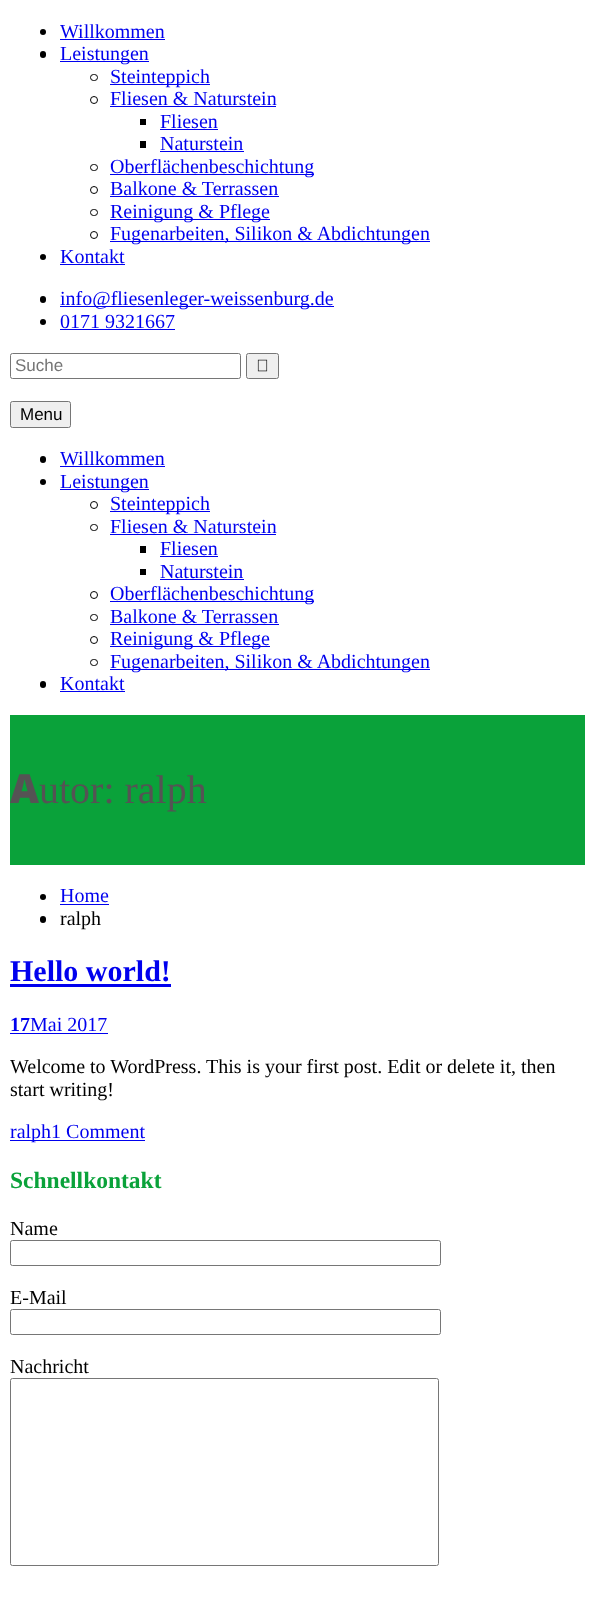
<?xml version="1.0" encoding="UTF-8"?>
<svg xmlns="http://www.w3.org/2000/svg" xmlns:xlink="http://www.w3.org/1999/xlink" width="595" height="1601">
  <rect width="100%" height="100%" fill="#ffffff" />
  <circle cx="43" cy="32" r="3" fill="#000000" />
  <rect x="60" y="39" width="105" height="1" fill="#0000ee" />
  <rect x="40" y="51" width="6" height="7" rx="3" fill="#000000" />
  <rect x="60" y="61" width="89" height="1" fill="#0000ee" />
  <rect x="90.5" y="74.5" width="7" height="6" rx="3" fill="none" stroke="#000000" />
  <rect x="110" y="84" width="100" height="1" fill="#0000ee" />
  <circle cx="94" cy="100" r="3.5" fill="none" stroke="#000000" />
  <rect x="110" y="106" width="166" height="1" fill="#0000ee" />
  <rect x="140" y="119" width="6" height="6" fill="#000000" />
  <rect x="160" y="129" width="58" height="1" fill="#0000ee" />
  <rect x="140" y="141" width="6" height="7" fill="#000000" />
  <rect x="160" y="151" width="84" height="1" fill="#0000ee" />
  <rect x="90.5" y="164.5" width="7" height="6" rx="3" fill="none" stroke="#000000" />
  <rect x="110" y="174" width="204" height="1" fill="#0000ee" />
  <circle cx="94" cy="190" r="3.5" fill="none" stroke="#000000" />
  <rect x="110" y="196" width="169" height="1" fill="#0000ee" />
  <rect x="90.5" y="209.5" width="7" height="6" rx="3" fill="none" stroke="#000000" />
  <rect x="110" y="219" width="160" height="1" fill="#0000ee" />
  <circle cx="94" cy="235" r="3.5" fill="none" stroke="#000000" />
  <rect x="110" y="241" width="320" height="1" fill="#0000ee" />
  <circle cx="43" cy="257" r="3" fill="#000000" />
  <rect x="60" y="264" width="65" height="1" fill="#0000ee" />
  <rect x="40" y="296" width="6" height="7" rx="3" fill="#000000" />
  <rect x="60" y="306" width="274" height="1" fill="#0000ee" />
  <circle cx="43" cy="322" r="3" fill="#000000" />
  <rect x="60" y="329" width="115" height="1" fill="#0000ee" />
  <rect x="10.5" y="353.5" width="230" height="25" rx="2" fill="none" stroke="#767676" />
  <rect x="246.5" y="353.5" width="32" height="25" rx="2" fill="#efefef" stroke="#767676" />
  <image x="257" y="359" width="11" height="13" xlink:href="image1.png" />
  <rect x="10.5" y="401.5" width="60" height="26" rx="2" fill="#efefef" stroke="#767676" />
  <rect x="40" y="456" width="6" height="7" rx="3" fill="#000000" />
  <rect x="60" y="466" width="105" height="1" fill="#0000ee" />
  <circle cx="43" cy="482" r="3" fill="#000000" />
  <rect x="60" y="489" width="89" height="1" fill="#0000ee" />
  <circle cx="94" cy="505" r="3.5" fill="none" stroke="#000000" />
  <rect x="110" y="511" width="100" height="1" fill="#0000ee" />
  <rect x="90.5" y="524.5" width="7" height="6" rx="3" fill="none" stroke="#000000" />
  <rect x="110" y="534" width="166" height="1" fill="#0000ee" />
  <rect x="140" y="546" width="6" height="7" fill="#000000" />
  <rect x="160" y="556" width="58" height="1" fill="#0000ee" />
  <rect x="140" y="569" width="6" height="6" fill="#000000" />
  <rect x="160" y="579" width="84" height="1" fill="#0000ee" />
  <circle cx="94" cy="595" r="3.5" fill="none" stroke="#000000" />
  <rect x="110" y="601" width="204" height="1" fill="#0000ee" />
  <rect x="90.5" y="614.5" width="7" height="6" rx="3" fill="none" stroke="#000000" />
  <rect x="110" y="624" width="169" height="1" fill="#0000ee" />
  <circle cx="94" cy="640" r="3.5" fill="none" stroke="#000000" />
  <rect x="110" y="646" width="160" height="1" fill="#0000ee" />
  <rect x="90.5" y="659.5" width="7" height="6" rx="3" fill="none" stroke="#000000" />
  <rect x="110" y="669" width="320" height="1" fill="#0000ee" />
  <rect x="40" y="681" width="6" height="7" rx="3" fill="#000000" />
  <rect x="60" y="691" width="65" height="1" fill="#0000ee" />
  <rect x="10" y="715" width="575" height="150" fill="#0aa23a" />
  <circle cx="43" cy="897" r="3" fill="#000000" />
  <rect x="60" y="904" width="49" height="1" fill="#0000ee" />
  <rect x="40" y="916" width="6" height="7" rx="3" fill="#000000" />
  <rect x="10" y="984" width="161" height="3" fill="#0000ee" />
  <rect x="10" y="1033" width="98" height="1" fill="#0000ee" />
  <rect x="10" y="1140" width="135" height="1" fill="#0000ee" />
  <rect x="10.5" y="1240.5" width="430" height="25" rx="2" fill="none" stroke="#767676" />
  <rect x="10.5" y="1309.5" width="430" height="25" rx="2" fill="none" stroke="#767676" />
  <rect x="10.5" y="1378.5" width="428" height="187" rx="2" fill="none" stroke="#767676" />
  <text x="60" y="38" style="font-family: Liberation Serif; font-size: 20px; fill: #0000ee">Willkommen</text>
  <text x="60" y="60" style="font-family: Liberation Serif; font-size: 20px; fill: #0000ee">Leistungen</text>
  <text x="110" y="83" style="font-family: Liberation Serif; font-size: 20px; fill: #0000ee">Steinteppich</text>
  <text x="110" y="105" style="font-family: Liberation Serif; font-size: 20px; fill: #0000ee">Fliesen &amp; Naturstein</text>
  <text x="160" y="128" style="font-family: Liberation Serif; font-size: 20px; fill: #0000ee">Fliesen</text>
  <text x="160" y="150" style="font-family: Liberation Serif; font-size: 20px; fill: #0000ee">Naturstein</text>
  <text x="110" y="173" style="font-family: Liberation Serif; font-size: 20px; fill: #0000ee">Oberflächenbeschichtung</text>
  <text x="110" y="195" style="font-family: Liberation Serif; font-size: 20px; fill: #0000ee">Balkone &amp; Terrassen</text>
  <text x="110" y="218" style="font-family: Liberation Serif; font-size: 20px; fill: #0000ee">Reinigung &amp; Pflege</text>
  <text x="110" y="240" style="font-family: Liberation Serif; font-size: 20px; fill: #0000ee">Fugenarbeiten, Silikon &amp; Abdichtungen</text>
  <text x="60" y="263" style="font-family: Liberation Serif; font-size: 20px; fill: #0000ee">Kontakt</text>
  <text x="60" y="305" style="font-family: Liberation Serif; font-size: 20px; fill: #0000ee">info@fliesenleger-weissenburg.de</text>
  <text x="60" y="328" style="font-family: Liberation Serif; font-size: 20px; fill: #0000ee">0171 9321667</text>
  <text x="15" y="371" style="font-family: Liberation Sans; font-size: 17px; fill: #757575">Suche</text>
  <text x="20" y="420" style="font-family: Liberation Sans; font-size: 17px; fill: #000000">Menu</text>
  <text x="60" y="465" style="font-family: Liberation Serif; font-size: 20px; fill: #0000ee">Willkommen</text>
  <text x="60" y="488" style="font-family: Liberation Serif; font-size: 20px; fill: #0000ee">Leistungen</text>
  <text x="110" y="510" style="font-family: Liberation Serif; font-size: 20px; fill: #0000ee">Steinteppich</text>
  <text x="110" y="533" style="font-family: Liberation Serif; font-size: 20px; fill: #0000ee">Fliesen &amp; Naturstein</text>
  <text x="160" y="555" style="font-family: Liberation Serif; font-size: 20px; fill: #0000ee">Fliesen</text>
  <text x="160" y="578" style="font-family: Liberation Serif; font-size: 20px; fill: #0000ee">Naturstein</text>
  <text x="110" y="600" style="font-family: Liberation Serif; font-size: 20px; fill: #0000ee">Oberflächenbeschichtung</text>
  <text x="110" y="623" style="font-family: Liberation Serif; font-size: 20px; fill: #0000ee">Balkone &amp; Terrassen</text>
  <text x="110" y="645" style="font-family: Liberation Serif; font-size: 20px; fill: #0000ee">Reinigung &amp; Pflege</text>
  <text x="110" y="668" style="font-family: Liberation Serif; font-size: 20px; fill: #0000ee">Fugenarbeiten, Silikon &amp; Abdichtungen</text>
  <text x="60" y="690" style="font-family: Liberation Serif; font-size: 20px; fill: #0000ee">Kontakt</text>
  <text x="10" y="803" style="font-family: Noto Sans; font-size: 40px; font-weight: 900; fill: #555354">A</text>
  <text x="39" y="803" style="font-family: Liberation Serif; font-size: 40px; fill: #555354">utor: ralph</text>
  <text x="60" y="902" style="font-family: Liberation Serif; font-size: 20px; fill: #0000ee">Home</text>
  <text x="60" y="925" style="font-family: Liberation Serif; font-size: 20px; fill: #000000">ralph</text>
  <text x="10" y="981" style="font-family: Liberation Serif; font-size: 30px; font-weight: bold; fill: #0000ee">Hello world!</text>
  <text x="10" y="1031" style="font-family: Liberation Serif; font-size: 20px; font-weight: bold; fill: #0000ee">17</text>
  <text x="30" y="1031" style="font-family: Liberation Serif; font-size: 20px; fill: #0000ee">Mai 2017</text>
  <text x="10" y="1073" style="font-family: Liberation Serif; font-size: 20px; fill: #000000">Welcome to WordPress. This is your first post. Edit or delete it, then</text>
  <text x="10" y="1096" style="font-family: Liberation Serif; font-size: 20px; fill: #000000">start writing!</text>
  <text x="10" y="1138" style="font-family: Liberation Serif; font-size: 20px; fill: #0000ee">ralph1 Comment</text>
  <text x="10" y="1188" style="font-family: Liberation Serif; font-size: 23.5px; font-weight: bold; fill: #0aa23a">Schnellkontakt</text>
  <text x="10" y="1235" style="font-family: Liberation Serif; font-size: 20px; fill: #000000">Name</text>
  <text x="10" y="1304" style="font-family: Liberation Serif; font-size: 20px; fill: #000000">E-Mail</text>
  <text x="10" y="1373" style="font-family: Liberation Serif; font-size: 20px; fill: #000000">Nachricht</text>
</svg>
